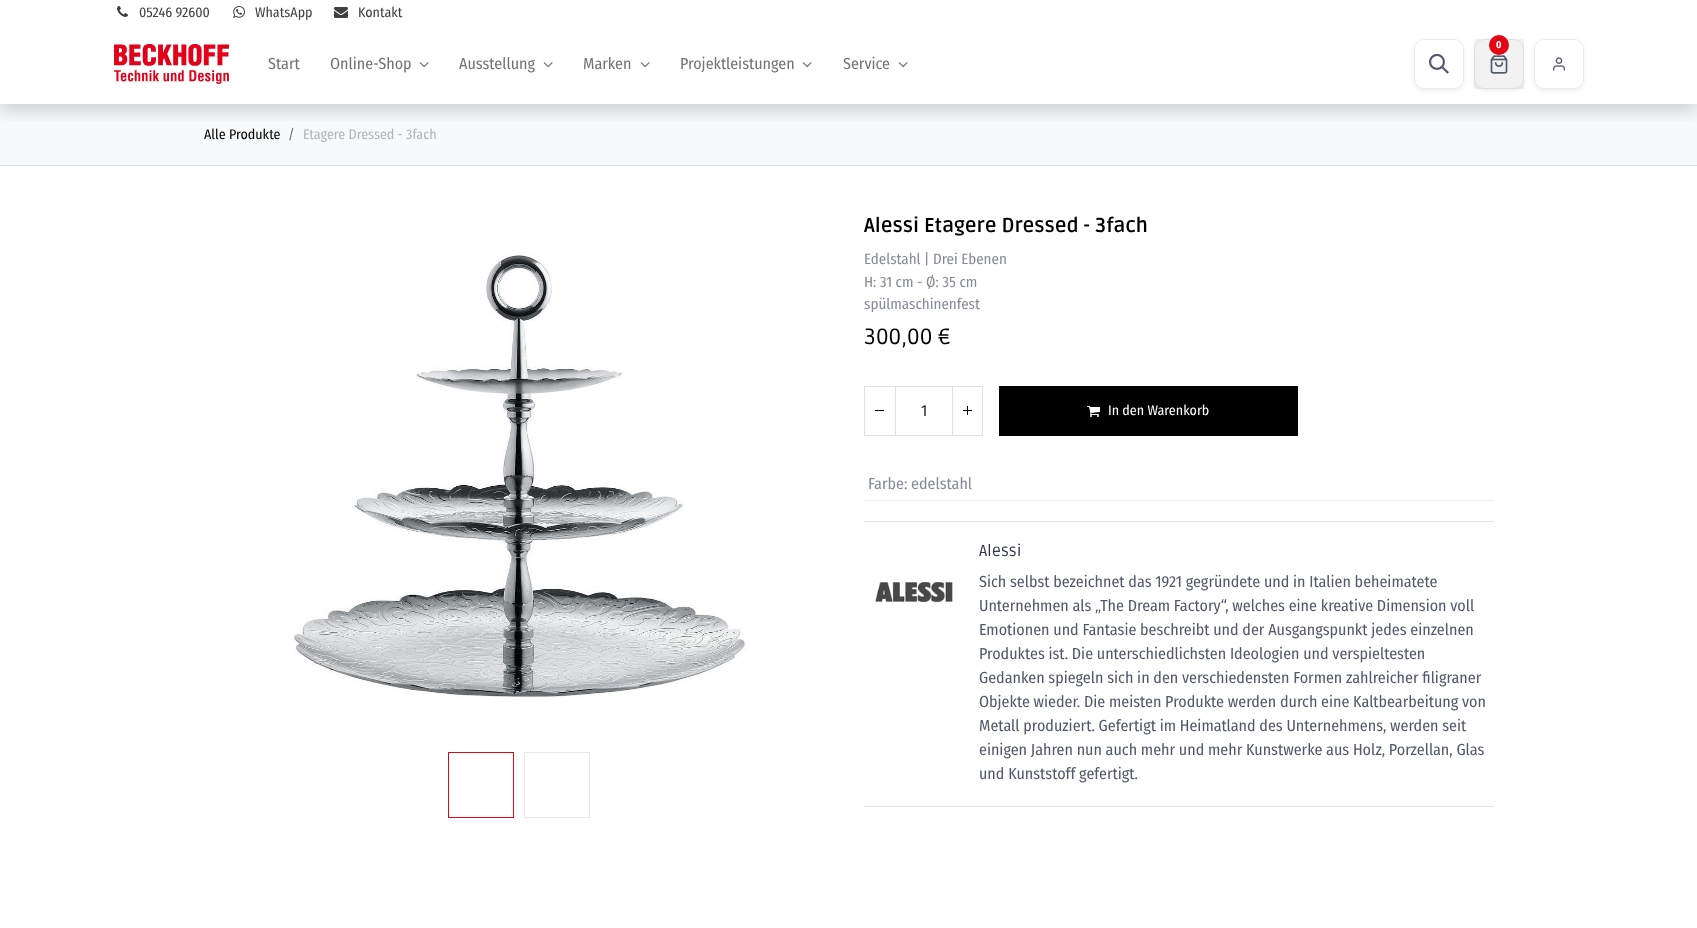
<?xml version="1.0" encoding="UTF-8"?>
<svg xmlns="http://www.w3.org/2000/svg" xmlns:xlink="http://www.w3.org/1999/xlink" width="1697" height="928">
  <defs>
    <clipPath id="clip1"><rect x="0" y="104" width="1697" height="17" /></clipPath>
    <clipPath id="clip2"><path d="M 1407 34 h 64 v 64 h -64 z m 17 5 h 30 c 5.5 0 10 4.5 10 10 v 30 c 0 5.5 -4.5 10 -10 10 h -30 c -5.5 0 -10 -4.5 -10 -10 v -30 c 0 -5.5 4.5 -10 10 -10 z" clip-rule="evenodd" /></clipPath>
    <clipPath id="clip3"><path d="M 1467 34 h 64 v 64 h -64 z m 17 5 h 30 c 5.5 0 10 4.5 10 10 v 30 c 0 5.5 -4.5 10 -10 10 h -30 c -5.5 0 -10 -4.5 -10 -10 v -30 c 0 -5.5 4.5 -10 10 -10 z" clip-rule="evenodd" /></clipPath>
    <clipPath id="clip4"><path d="M 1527 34 h 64 v 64 h -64 z m 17 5 h 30 c 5.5 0 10 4.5 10 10 v 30 c 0 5.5 -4.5 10 -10 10 h -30 c -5.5 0 -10 -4.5 -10 -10 v -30 c 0 -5.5 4.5 -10 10 -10 z" clip-rule="evenodd" /></clipPath>
  </defs>
  <rect width="100%" height="100%" fill="#ffffff" />
  <rect y="104" width="1697" height="61" fill="#f8f9fa" />
  <g clip-path="url(#clip1)">
    <rect y="8" width="1697" height="104" fill="#000000" fill-opacity="0.15" filter="blur(8px)" />
  </g>
  <image x="117" y="6" width="11" height="11" xlink:href="image1.png" />
  <image x="233" y="6" width="12" height="12" xlink:href="image2.png" />
  <image x="334" y="7" width="14" height="11" xlink:href="image3.png" />
  <image x="114" y="44" width="115" height="40" xlink:href="image4.png" />
  <image x="419" y="62" width="10" height="6" xlink:href="image5.png" />
  <image x="543" y="62" width="10" height="6" xlink:href="image5.png" />
  <image x="640" y="62" width="10" height="6" xlink:href="image5.png" />
  <image x="802" y="62" width="10" height="6" xlink:href="image5.png" />
  <image x="898" y="62" width="10" height="6" xlink:href="image5.png" />
  <g clip-path="url(#clip2)">
    <rect x="1414" y="41" width="50" height="50" rx="10" fill="#000000" fill-opacity="0.07" filter="blur(2px)" />
  </g>
  <rect x="1414.5" y="39.5" width="49" height="49" rx="9.5" fill="none" stroke="#000000" stroke-opacity="0.08" />
  <image x="1429" y="53" width="20" height="21" xlink:href="image6.png" />
  <rect x="1474" y="39" width="50" height="50" fill="#f2f2f2" />
  <g clip-path="url(#clip3)">
    <rect x="1474" y="41" width="50" height="50" rx="10" fill="#000000" fill-opacity="0.07" filter="blur(2px)" />
  </g>
  <rect x="1474.5" y="39.5" width="49" height="49" rx="9.5" fill="none" stroke="#000000" stroke-opacity="0.08" />
  <circle cx="1499" cy="45" r="10" fill="#e30613" />
  <image x="1490" y="55" width="18" height="19" xlink:href="image7.png" />
  <g clip-path="url(#clip4)">
    <rect x="1534" y="41" width="50" height="50" rx="10" fill="#000000" fill-opacity="0.07" filter="blur(2px)" />
  </g>
  <rect x="1534.5" y="39.5" width="49" height="49" rx="9.5" fill="none" stroke="#000000" stroke-opacity="0.08" />
  <image x="1553" y="57" width="12" height="14" xlink:href="image8.png" />
  <rect y="165" width="1697" height="1" fill="#dee2e6" />
  <image x="293" y="255" width="454" height="443" xlink:href="image9.png" />
  <rect x="448.5" y="752.5" width="65" height="65" fill="none" stroke="#e30613" />
  <rect x="524.5" y="752.5" width="65" height="65" fill="none" stroke="#e7eaed" />
  <rect x="864.5" y="386.5" width="118" height="49" fill="none" stroke="#dee2e6" />
  <rect x="875" y="410" width="9" height="1" fill="#000000" />
  <rect x="952" y="387" width="1" height="48" fill="#dee2e6" />
  <rect x="895" y="387" width="1" height="48" fill="#dee2e6" />
  <rect x="963" y="410" width="9" height="1" fill="#000000" />
  <rect x="967" y="406" width="1" height="9" fill="#000000" />
  <rect x="999" y="386" width="299" height="50" fill="#000000" />
  <image x="1087" y="406" width="13" height="11" xlink:href="image10.png" />
  <rect x="863" y="500" width="631" height="1" fill="#edeef0" />
  <rect x="864" y="521" width="630" height="1" fill="#dee2e6" />
  <image x="875" y="582" width="78" height="21" xlink:href="image11.png" />
  <rect x="864" y="806" width="630" height="1" fill="#dee2e6" />
  <text x="139" y="17" style="font-family: Fira Sans Condensed; font-size: 14px; fill: #404040">05246 92600</text>
  <text x="255" y="17" style="font-family: Fira Sans Condensed; font-size: 14px; fill: #404040">WhatsApp</text>
  <text x="358" y="17" style="font-family: Fira Sans Condensed; font-size: 14px; fill: #404040">Kontakt</text>
  <text x="268" y="69" style="font-family: Fira Sans Condensed; font-size: 16px; fill: #737373">Start</text>
  <text x="330" y="69" style="font-family: Fira Sans Condensed; font-size: 16px; fill: #737373">Online-Shop</text>
  <text x="459" y="69" style="font-family: Fira Sans Condensed; font-size: 16px; fill: #737373">Ausstellung</text>
  <text x="583" y="69" style="font-family: Fira Sans Condensed; font-size: 16px; fill: #737373">Marken</text>
  <text x="680" y="69" style="font-family: Fira Sans Condensed; font-size: 16px; fill: #737373">Projektleistungen</text>
  <text x="843" y="69" style="font-family: Fira Sans Condensed; font-size: 16px; fill: #737373">Service</text>
  <text x="1496" y="48" style="font-family: Fira Sans Condensed; font-size: 10px; font-weight: bold; fill: #ffffff">0</text>
  <text x="204" y="139" style="font-family: Fira Sans Condensed; font-size: 14px; fill: #000000">Alle Produkte</text>
  <text x="288" y="139" style="font-family: Fira Sans Condensed; font-size: 14px; fill: #6c757d">/</text>
  <text x="303" y="139" style="font-family: Fira Sans Condensed; font-size: 14px; fill: #adb5bd">Etagere Dressed - 3fach</text>
  <text x="864" y="232" style="font-family: Ruda; font-size: 20px; font-weight: bold; fill: #000000">Alessi Etagere Dressed - 3fach</text>
  <text x="864" y="264" style="font-family: Fira Sans Condensed; font-size: 15px; fill: #858b98">Edelstahl | Drei Ebenen</text>
  <text x="864" y="287" style="font-family: Fira Sans Condensed; font-size: 15px; fill: #858b98">H: 31 cm - Ø: 35 cm</text>
  <text x="864" y="309" style="font-family: Fira Sans Condensed; font-size: 15px; fill: #858b98">spülmaschinenfest</text>
  <text x="864" y="344" style="font-family: Ruda; font-size: 22px; fill: #000000">300,00 €</text>
  <text x="921" y="416" style="font-family: Fira Sans Condensed; font-size: 16px; fill: #212529">1</text>
  <text x="1108" y="415" style="font-family: Fira Sans Condensed; font-size: 14px; fill: #ffffff">In den Warenkorb</text>
  <text x="868" y="489" style="font-family: Fira Sans Condensed; font-size: 16px; fill: #858b98">Farbe: edelstahl</text>
  <text x="979" y="556" style="font-family: Ruda; font-size: 16px; fill: #2d374b">Alessi</text>
  <text x="979" y="587" style="font-family: Fira Sans Condensed; font-size: 16px; fill: #51596c">Sich selbst bezeichnet das 1921 gegründete und in Italien beheimatete</text>
  <text x="979" y="611" style="font-family: Fira Sans Condensed; font-size: 16px; fill: #51596c">Unternehmen als „The Dream Factory“, welches eine kreative Dimension voll</text>
  <text x="979" y="635" style="font-family: Fira Sans Condensed; font-size: 16px; fill: #51596c">Emotionen und Fantasie beschreibt und der Ausgangspunkt jedes einzelnen</text>
  <text x="979" y="659" style="font-family: Fira Sans Condensed; font-size: 16px; fill: #51596c">Produktes ist. Die unterschiedlichsten Ideologien und verspieltesten</text>
  <text x="979" y="683" style="font-family: Fira Sans Condensed; font-size: 16px; fill: #51596c">Gedanken spiegeln sich in den verschiedensten Formen zahlreicher filigraner</text>
  <text x="979" y="707" style="font-family: Fira Sans Condensed; font-size: 16px; fill: #51596c">Objekte wieder. Die meisten Produkte werden durch eine Kaltbearbeitung von</text>
  <text x="979" y="731" style="font-family: Fira Sans Condensed; font-size: 16px; fill: #51596c">Metall produziert. Gefertigt im Heimatland des Unternehmens, werden seit</text>
  <text x="979" y="755" style="font-family: Fira Sans Condensed; font-size: 16px; fill: #51596c">einigen Jahren nun auch mehr und mehr Kunstwerke aus Holz, Porzellan, Glas</text>
  <text x="979" y="779" style="font-family: Fira Sans Condensed; font-size: 16px; fill: #51596c">und Kunststoff gefertigt.</text>
</svg>
